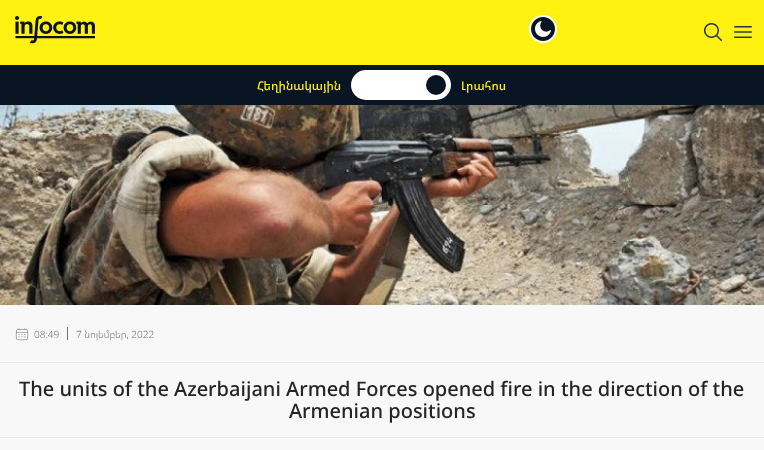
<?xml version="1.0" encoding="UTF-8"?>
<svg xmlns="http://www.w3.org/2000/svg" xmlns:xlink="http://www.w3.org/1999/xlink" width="764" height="450">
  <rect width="100%" height="100%" fill="#f8f8f8" />
  <rect width="764" height="65" fill="#fff212" />
  <image x="15" y="16" width="80" height="28" xlink:href="image1.png" />
  <image x="529" y="15" width="28" height="28" xlink:href="image2.png" />
  <image x="704" y="23" width="18" height="18" xlink:href="image3.png" />
  <image x="734" y="26" width="18" height="12" xlink:href="image4.png" />
  <rect y="65" width="764" height="40" fill="#0a1524" />
  <rect x="351" y="70" width="100" height="30" rx="15" fill="#ffffff" />
  <circle cx="436" cy="85" r="10" fill="#0a1524" />
  <image x="0" y="105" width="764" height="200" xlink:href="image5.png" />
  <image x="15" y="328" width="14" height="13" xlink:href="image6.png" />
  <rect x="67" y="327" width="1" height="13" fill="#67717d" />
  <rect y="362" width="764" height="1" fill="#e9e9e9" />
  <rect y="437" width="764" height="1" fill="#e9e9e9" />
  <text x="257" y="90" style="font-family: Noto Sans Armenian; font-size: 12px; font-weight: 500; fill: #fff212">Հեղինակային</text>
  <text x="461" y="90" style="font-family: Noto Sans Armenian; font-size: 12px; font-weight: 500; fill: #fff212">Լրահոս</text>
  <text x="34" y="338" style="font-family: Noto Sans Armenian; font-size: 10px; font-weight: 300; fill: #67717d">08:49</text>
  <text x="76" y="338" style="font-family: Noto Sans Armenian; font-size: 10px; font-weight: 300; fill: #67717d">7 նոյեմբեր, 2022</text>
  <text x="19" y="396" style="font-family: Noto Sans Armenian; font-size: 20px; font-weight: 500; fill: #242424">The units of the Azerbaijani Armed Forces opened fire in the direction of the</text>
  <text x="289" y="418" style="font-family: Noto Sans Armenian; font-size: 20px; font-weight: 500; fill: #242424">Armenian positions</text>
</svg>
